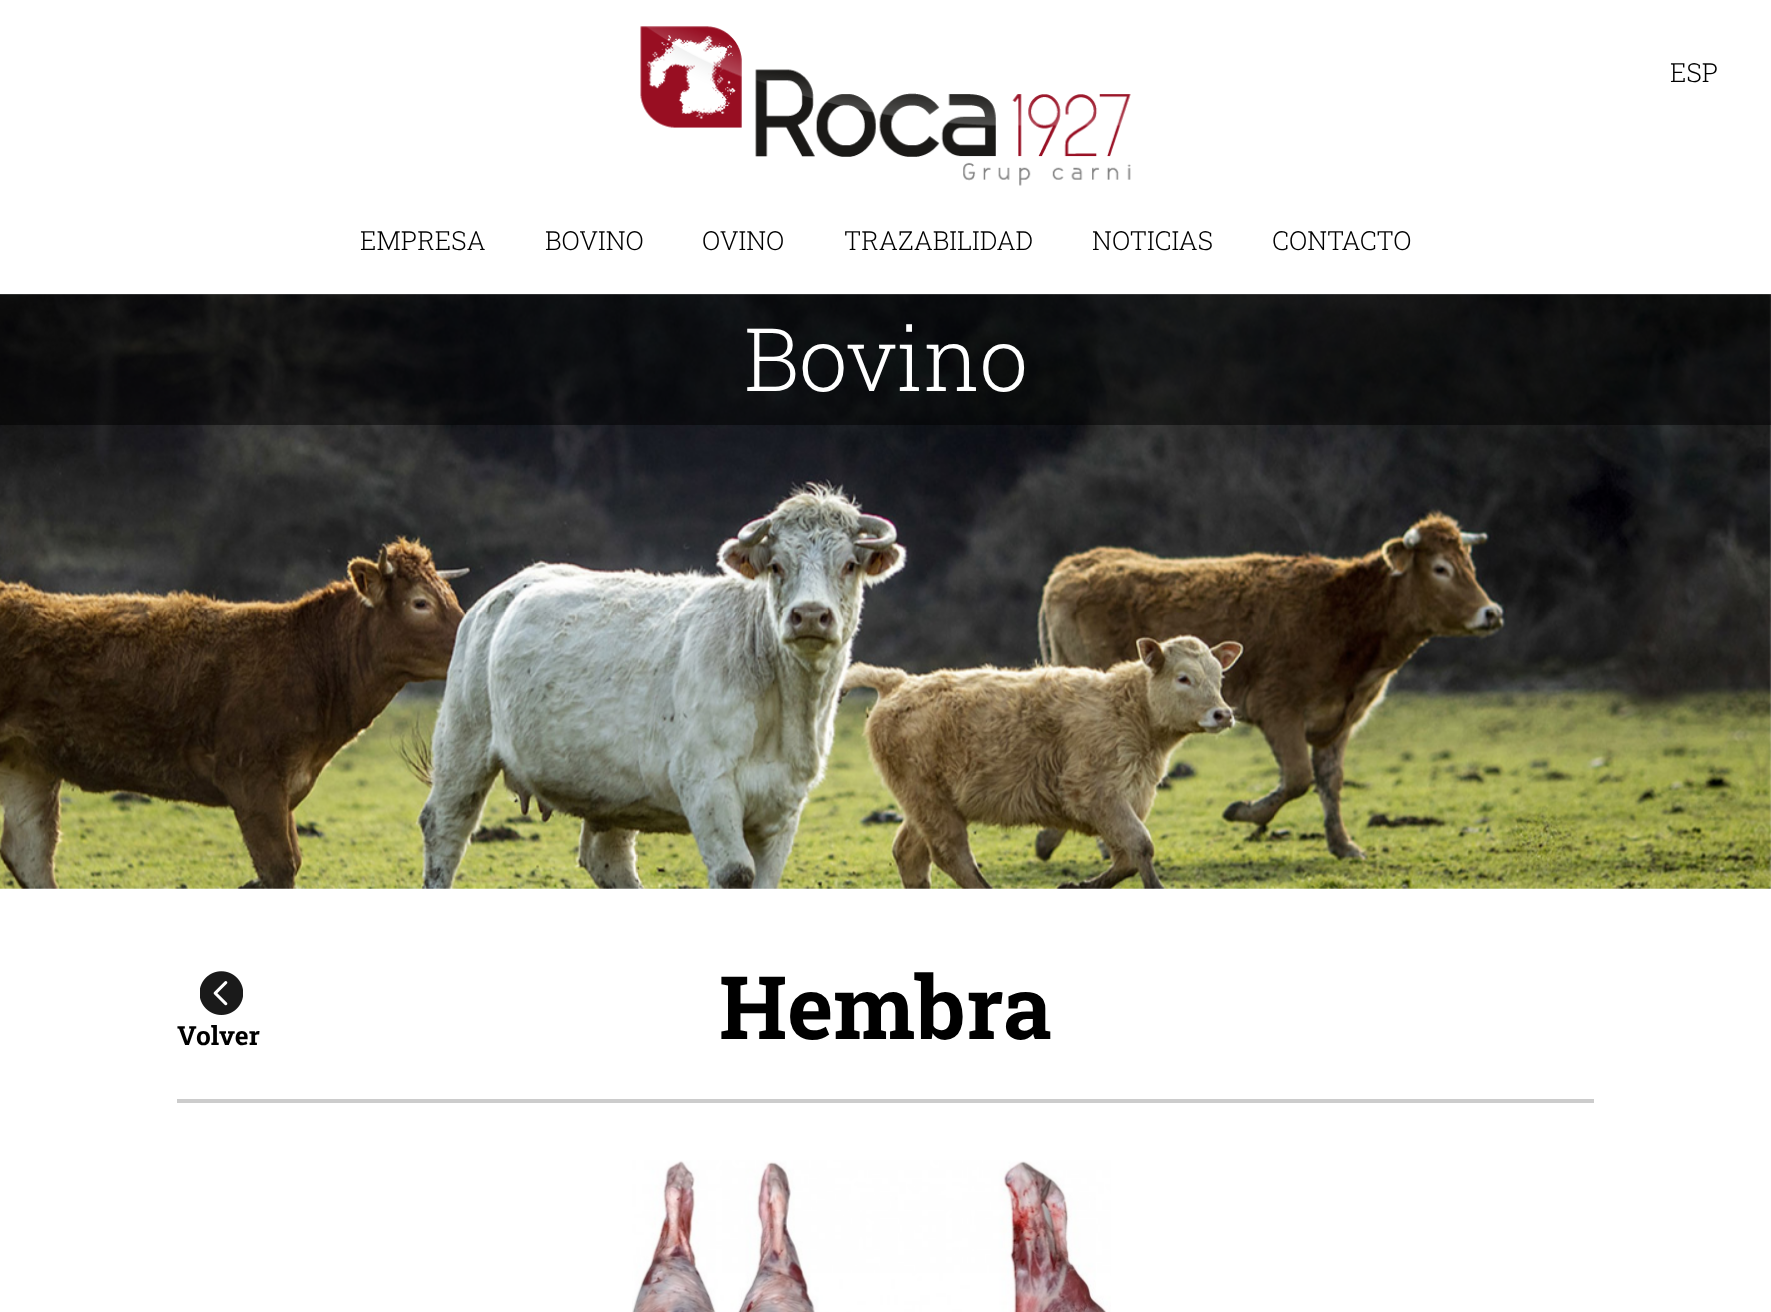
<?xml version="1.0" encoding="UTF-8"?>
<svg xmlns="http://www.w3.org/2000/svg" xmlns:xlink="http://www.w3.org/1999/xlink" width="1771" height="1312">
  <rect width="100%" height="100%" fill="#ffffff" />
  <image x="640" y="26" width="491" height="160" xlink:href="image1.png" />
  <image x="0" y="294" width="1771" height="595" xlink:href="image2.png" />
  <rect y="294" width="1771" height="131" fill="#000000" fill-opacity="0.5" />
  <image x="200" y="971" width="43" height="44" xlink:href="image3.png" />
  <rect x="177" y="1099" width="1417" height="4" fill="#cccccc" />
  <image x="632" y="1160" width="479" height="152" xlink:href="image4.png" />
  <text x="1670" y="82" style="font-family: Roboto Slab; font-size: 26.25px; font-weight: 300; fill: #000000">ESP</text>
  <text x="360" y="250" style="font-family: Roboto Slab; font-size: 26.25px; font-weight: 300; fill: #000000">EMPRESA</text>
  <text x="545" y="250" style="font-family: Roboto Slab; font-size: 26.25px; font-weight: 300; fill: #000000">BOVINO</text>
  <text x="702" y="250" style="font-family: Roboto Slab; font-size: 26.25px; font-weight: 300; fill: #000000">OVINO</text>
  <text x="844" y="250" style="font-family: Roboto Slab; font-size: 26.25px; font-weight: 300; fill: #000000">TRAZABILIDAD</text>
  <text x="1092" y="250" style="font-family: Roboto Slab; font-size: 26.25px; font-weight: 300; fill: #000000">NOTICIAS</text>
  <text x="1272" y="250" style="font-family: Roboto Slab; font-size: 26.25px; font-weight: 300; fill: #000000">CONTACTO</text>
  <text x="744" y="391" style="font-family: Roboto Slab; font-size: 87.5px; font-weight: 300; fill: #ffffff">Bovino</text>
  <text x="177" y="1045" style="font-family: Roboto Slab; font-size: 26.25px; font-weight: bold; fill: #000000">Volver</text>
  <text x="719" y="1039" style="font-family: Roboto Slab; font-size: 87.5px; font-weight: bold; fill: #000000">Hembra</text>
</svg>
